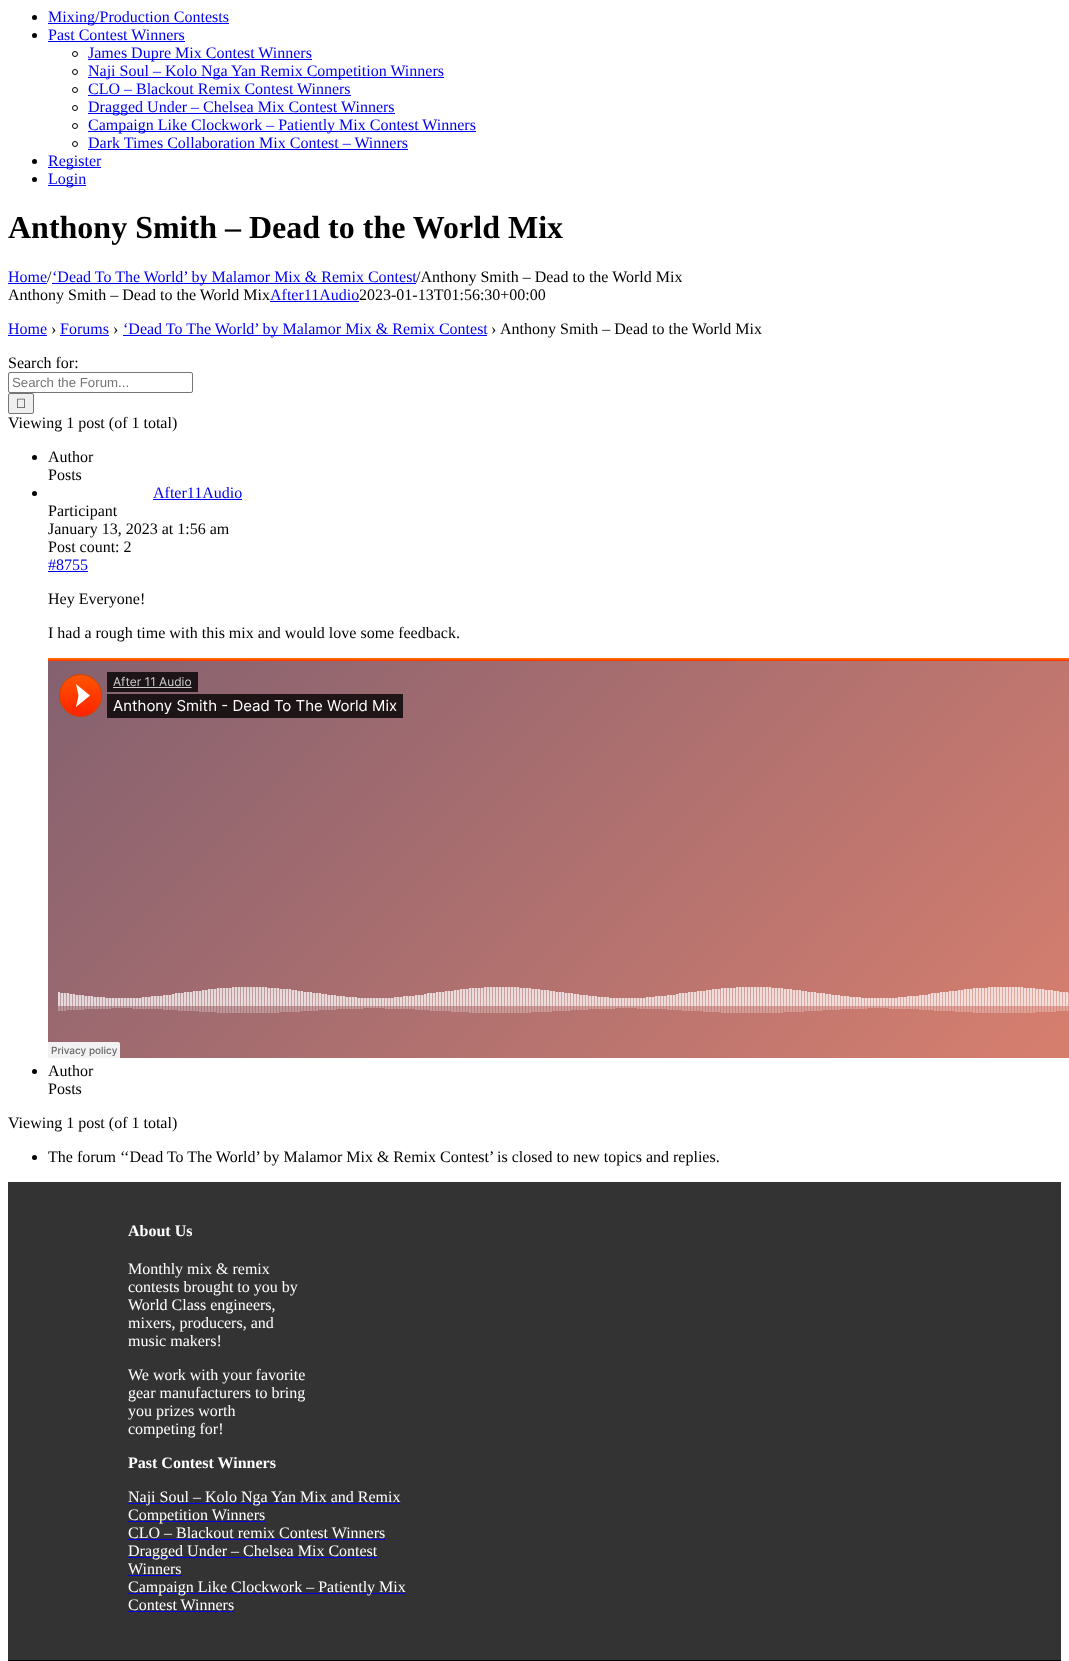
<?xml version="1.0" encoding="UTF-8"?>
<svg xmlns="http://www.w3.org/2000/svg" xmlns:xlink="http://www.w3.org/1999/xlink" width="1069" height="1661">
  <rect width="100%" height="100%" fill="#ffffff" />
  <circle cx="34.5" cy="17.5" r="2.5" fill="#000000" />
  <rect x="48" y="23" width="181" height="1" fill="#0000ee" />
  <circle cx="34.5" cy="35.5" r="2.5" fill="#000000" />
  <rect x="48" y="41" width="137" height="1" fill="#0000ee" />
  <circle cx="75" cy="54" r="2.5" fill="none" stroke="#000000" />
  <rect x="88" y="59" width="224" height="1" fill="#0000ee" />
  <circle cx="75" cy="72" r="2.5" fill="none" stroke="#000000" />
  <rect x="88" y="77" width="356" height="1" fill="#0000ee" />
  <circle cx="75" cy="90" r="2.5" fill="none" stroke="#000000" />
  <rect x="88" y="95" width="263" height="1" fill="#0000ee" />
  <circle cx="75" cy="108" r="2.5" fill="none" stroke="#000000" />
  <rect x="88" y="113" width="307" height="1" fill="#0000ee" />
  <circle cx="75" cy="126" r="2.5" fill="none" stroke="#000000" />
  <rect x="88" y="131" width="388" height="1" fill="#0000ee" />
  <circle cx="75" cy="144" r="2.5" fill="none" stroke="#000000" />
  <rect x="88" y="149" width="320" height="1" fill="#0000ee" />
  <circle cx="34.5" cy="161.5" r="2.5" fill="#000000" />
  <rect x="48" y="167" width="53" height="1" fill="#0000ee" />
  <circle cx="34.5" cy="179.5" r="2.5" fill="#000000" />
  <rect x="48" y="185" width="38" height="1" fill="#0000ee" />
  <rect x="8" y="283" width="39" height="1" fill="#0000ee" />
  <rect x="52" y="283" width="364" height="1" fill="#0000ee" />
  <rect x="270" y="301" width="89" height="1" fill="#0000ee" />
  <rect x="8" y="335" width="39" height="1" fill="#0000ee" />
  <rect x="60" y="335" width="49" height="1" fill="#0000ee" />
  <rect x="123" y="335" width="364" height="1" fill="#0000ee" />
  <rect x="8.5" y="372.5" width="184" height="20" rx="1.5" fill="none" stroke="#767676" />
  <rect x="8.5" y="393.5" width="25" height="20" rx="1.5" fill="#efefef" stroke="#767676" />
  <image x="17" y="398" width="8" height="10" xlink:href="image1.png" />
  <circle cx="34.5" cy="457.5" r="2.5" fill="#000000" />
  <circle cx="34.5" cy="493.5" r="2.5" fill="#000000" />
  <rect x="153" y="499" width="89" height="1" fill="#0000ee" />
  <rect x="48" y="571" width="40" height="1" fill="#0000ee" />
  <image x="48" y="658" width="1021" height="400" xlink:href="image2.png" />
  <circle cx="34.5" cy="1071.5" r="2.5" fill="#000000" />
  <circle cx="34.5" cy="1157.5" r="2.5" fill="#000000" />
  <rect x="8" y="1182" width="1053" height="478" fill="#333333" />
  <rect x="128" y="1503" width="272" height="1" fill="#0000ee" />
  <rect x="128" y="1521" width="137" height="1" fill="#0000ee" />
  <rect x="128" y="1539" width="257" height="1" fill="#0000ee" />
  <rect x="128" y="1557" width="249" height="1" fill="#0000ee" />
  <rect x="128" y="1575" width="54" height="1" fill="#0000ee" />
  <rect x="128" y="1593" width="278" height="1" fill="#0000ee" />
  <rect x="128" y="1611" width="106" height="1" fill="#0000ee" />
  <rect x="8" y="1660" width="1053" height="1" fill="#000000" />
  <text x="48" y="22" style="font-family: Liberation Serif; font-size: 16px; fill: #0000ee">Mixing/Production Contests</text>
  <text x="48" y="40" style="font-family: Liberation Serif; font-size: 16px; fill: #0000ee">Past Contest Winners</text>
  <text x="88" y="58" style="font-family: Liberation Serif; font-size: 16px; fill: #0000ee">James Dupre Mix Contest Winners</text>
  <text x="88" y="76" style="font-family: Liberation Serif; font-size: 16px; fill: #0000ee">Naji Soul – Kolo Nga Yan Remix Competition Winners</text>
  <text x="88" y="94" style="font-family: Liberation Serif; font-size: 16px; fill: #0000ee">CLO – Blackout Remix Contest Winners</text>
  <text x="88" y="112" style="font-family: Liberation Serif; font-size: 16px; fill: #0000ee">Dragged Under – Chelsea Mix Contest Winners</text>
  <text x="88" y="130" style="font-family: Liberation Serif; font-size: 16px; fill: #0000ee">Campaign Like Clockwork – Patiently Mix Contest Winners</text>
  <text x="88" y="148" style="font-family: Liberation Serif; font-size: 16px; fill: #0000ee">Dark Times Collaboration Mix Contest – Winners</text>
  <text x="48" y="166" style="font-family: Liberation Serif; font-size: 16px; fill: #0000ee">Register</text>
  <text x="48" y="184" style="font-family: Liberation Serif; font-size: 16px; fill: #0000ee">Login</text>
  <text x="8" y="238" style="font-family: Liberation Serif; font-size: 32px; font-weight: bold; fill: #000000">Anthony Smith – Dead to the World Mix</text>
  <text x="8" y="282" style="font-family: Liberation Serif; font-size: 16px; fill: #0000ee">Home</text>
  <text x="47" y="282" style="font-family: Liberation Serif; font-size: 16px; fill: #000000">/</text>
  <text x="52" y="282" style="font-family: Liberation Serif; font-size: 16px; fill: #0000ee">‘Dead To The World’ by Malamor Mix &amp; Remix Contest</text>
  <text x="416" y="282" style="font-family: Liberation Serif; font-size: 16px; fill: #000000">/Anthony Smith – Dead to the World Mix</text>
  <text x="8" y="300" style="font-family: Liberation Serif; font-size: 16px; fill: #000000">Anthony Smith – Dead to the World Mix</text>
  <text x="270" y="300" style="font-family: Liberation Serif; font-size: 16px; fill: #0000ee">After11Audio</text>
  <text x="359" y="300" style="font-family: Liberation Serif; font-size: 16px; fill: #000000">2023-01-13T01:56:30+00:00</text>
  <text x="8" y="334" style="font-family: Liberation Serif; font-size: 16px; fill: #0000ee">Home</text>
  <text x="51" y="334" style="font-family: Liberation Serif; font-size: 16px; fill: #000000">›</text>
  <text x="60" y="334" style="font-family: Liberation Serif; font-size: 16px; fill: #0000ee">Forums</text>
  <text x="113" y="334" style="font-family: Liberation Serif; font-size: 16px; fill: #000000">›</text>
  <text x="123" y="334" style="font-family: Liberation Serif; font-size: 16px; fill: #0000ee">‘Dead To The World’ by Malamor Mix &amp; Remix Contest</text>
  <text x="491" y="334" style="font-family: Liberation Serif; font-size: 16px; fill: #000000">›</text>
  <text x="500" y="334" style="font-family: Liberation Serif; font-size: 16px; fill: #000000">Anthony Smith – Dead to the World Mix</text>
  <text x="8" y="368" style="font-family: Liberation Serif; font-size: 16px; fill: #000000">Search for:</text>
  <text x="12" y="387" style="font-family: Liberation Sans; font-size: 13.25px; fill: #757575">Search the Forum...</text>
  <text x="8" y="428" style="font-family: Liberation Serif; font-size: 16px; fill: #000000">Viewing 1 post (of 1 total)</text>
  <text x="48" y="462" style="font-family: Liberation Serif; font-size: 16px; fill: #000000">Author</text>
  <text x="48" y="480" style="font-family: Liberation Serif; font-size: 16px; fill: #000000">Posts</text>
  <text x="153" y="498" style="font-family: Liberation Serif; font-size: 16px; fill: #0000ee">After11Audio</text>
  <text x="48" y="516" style="font-family: Liberation Serif; font-size: 16px; fill: #000000">Participant</text>
  <text x="48" y="534" style="font-family: Liberation Serif; font-size: 16px; fill: #000000">January 13, 2023 at 1:56 am</text>
  <text x="48" y="552" style="font-family: Liberation Serif; font-size: 16px; fill: #000000">Post count: 2</text>
  <text x="48" y="570" style="font-family: Liberation Serif; font-size: 16px; fill: #0000ee">#8755</text>
  <text x="48" y="604" style="font-family: Liberation Serif; font-size: 16px; fill: #000000">Hey Everyone!</text>
  <text x="48" y="638" style="font-family: Liberation Serif; font-size: 16px; fill: #000000">I had a rough time with this mix and would love some feedback.</text>
  <text x="48" y="1076" style="font-family: Liberation Serif; font-size: 16px; fill: #000000">Author</text>
  <text x="48" y="1094" style="font-family: Liberation Serif; font-size: 16px; fill: #000000">Posts</text>
  <text x="8" y="1128" style="font-family: Liberation Serif; font-size: 16px; fill: #000000">Viewing 1 post (of 1 total)</text>
  <text x="48" y="1162" style="font-family: Liberation Serif; font-size: 16px; fill: #000000">The forum ‘‘Dead To The World’ by Malamor Mix &amp; Remix Contest’ is closed to new topics and replies.</text>
  <text x="128" y="1236" style="font-family: Liberation Serif; font-size: 16px; font-weight: bold; fill: #ffffff">About Us</text>
  <text x="128" y="1274" style="font-family: Liberation Serif; font-size: 16px; fill: #ffffff">Monthly mix &amp; remix</text>
  <text x="128" y="1292" style="font-family: Liberation Serif; font-size: 16px; fill: #ffffff">contests brought to you by</text>
  <text x="128" y="1310" style="font-family: Liberation Serif; font-size: 16px; fill: #ffffff">World Class engineers,</text>
  <text x="128" y="1328" style="font-family: Liberation Serif; font-size: 16px; fill: #ffffff">mixers, producers, and</text>
  <text x="128" y="1346" style="font-family: Liberation Serif; font-size: 16px; fill: #ffffff">music makers!</text>
  <text x="128" y="1380" style="font-family: Liberation Serif; font-size: 16px; fill: #ffffff">We work with your favorite</text>
  <text x="128" y="1398" style="font-family: Liberation Serif; font-size: 16px; fill: #ffffff">gear manufacturers to bring</text>
  <text x="128" y="1416" style="font-family: Liberation Serif; font-size: 16px; fill: #ffffff">you prizes worth</text>
  <text x="128" y="1434" style="font-family: Liberation Serif; font-size: 16px; fill: #ffffff">competing for!</text>
  <text x="128" y="1468" style="font-family: Liberation Serif; font-size: 16px; font-weight: bold; fill: #ffffff">Past Contest Winners</text>
  <text x="128" y="1502" style="font-family: Liberation Serif; font-size: 16px; fill: #ffffff">Naji Soul – Kolo Nga Yan Mix and Remix</text>
  <text x="128" y="1520" style="font-family: Liberation Serif; font-size: 16px; fill: #ffffff">Competition Winners</text>
  <text x="128" y="1538" style="font-family: Liberation Serif; font-size: 16px; fill: #ffffff">CLO – Blackout remix Contest Winners</text>
  <text x="128" y="1556" style="font-family: Liberation Serif; font-size: 16px; fill: #ffffff">Dragged Under – Chelsea Mix Contest</text>
  <text x="128" y="1574" style="font-family: Liberation Serif; font-size: 16px; fill: #ffffff">Winners</text>
  <text x="128" y="1592" style="font-family: Liberation Serif; font-size: 16px; fill: #ffffff">Campaign Like Clockwork – Patiently Mix</text>
  <text x="128" y="1610" style="font-family: Liberation Serif; font-size: 16px; fill: #ffffff">Contest Winners</text>
</svg>
